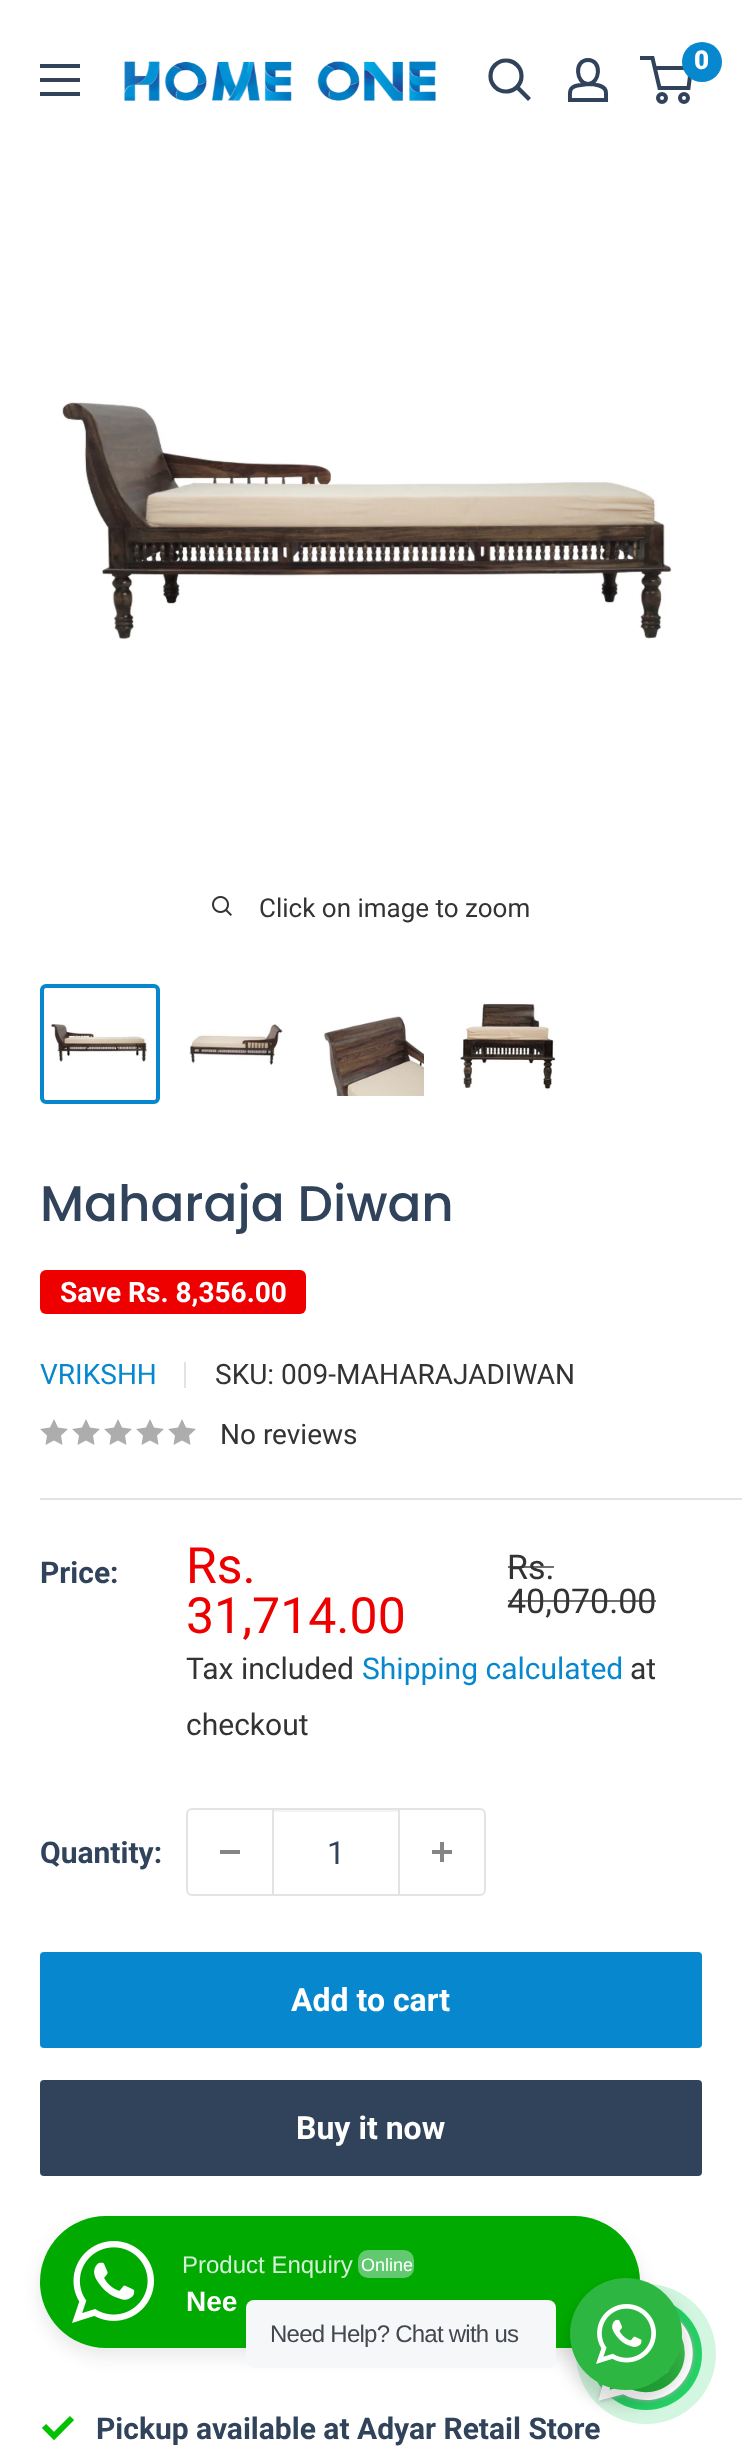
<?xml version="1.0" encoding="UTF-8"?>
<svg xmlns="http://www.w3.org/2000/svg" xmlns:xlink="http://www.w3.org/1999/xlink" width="742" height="2450">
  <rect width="100%" height="100%" fill="#ffffff" />
  <path d="M 40 92 h 40 v 4 h -40 z m 0 -28 h 40 v 4 h -40 z m 0 14 h 40 v 4 h -40 z" fill="#30435b" fill-rule="evenodd" />
  <image x="124" y="61" width="312" height="40" xlink:href="image1.png" />
  <path d="M 528 98 l -10.5 -10.5" fill="none" stroke="#30435b" stroke-width="4.2" stroke-linecap="square" />
  <circle cx="506" cy="76" r="15.5" fill="none" stroke="#30435b" stroke-width="4.2" />
  <path d="M 588 84 c 4 0 7.5 0.5 11 1.5 c 8.5 2.5 7 7 7 14.5 h -36 c 0 -8 -1.5 -12.5 7.5 -14.5 z m 0 0 c -12 0 -14.5 -24 0 -24 c 14.5 0 12 24 0 24 z" fill="none" stroke="#30435b" stroke-width="4" />
  <circle cx="662" cy="98" r="4" fill="none" stroke="#30435b" stroke-width="4" />
  <circle cx="684" cy="98" r="4" fill="none" stroke="#30435b" stroke-width="4" />
  <path d="M 654.5 68 h 36.5 l -2.5 20 h -29 l -7 -30 h -12.5" fill="none" stroke="#30435b" stroke-width="4" />
  <circle cx="702" cy="62" r="20" fill="#0788ce" />
  <image x="62" y="401" width="610" height="239" xlink:href="image2.png" />
  <image x="212" y="896" width="20" height="20" xlink:href="image3.png" />
  <rect x="42" y="986" width="116" height="116" rx="4" fill="none" stroke="#0788ce" stroke-width="4" />
  <image x="51" y="1024" width="97" height="38" xlink:href="image4.png" />
  <image x="189" y="1024" width="97" height="41" xlink:href="image5.png" />
  <image x="320" y="1015" width="104" height="81" xlink:href="image6.png" />
  <image x="460" y="1002" width="96" height="89" xlink:href="image7.png" />
  <rect x="40" y="1270" width="266" height="44" rx="6" fill="#ee0000" />
  <rect x="184" y="1362" width="2" height="26" fill="#e1e3e4" />
  <path d="M 68 1429 l -10 -1.5 l -4 -8.5 l -4 8.5 l -10 1.5 l 7 6.5 l -1.5 9.5 l 8.5 -4.5 l 8.5 4.5 l -1.5 -9.5 z m 32 0 l -10 -1.5 l -4 -8.5 l -4 8.5 l -10 1.5 l 7 6.5 l -1.5 9.5 l 8.5 -4.5 l 8.5 4.5 l -1.5 -9.5 z" fill="#adadad" />
  <path d="M 132 1429 l -10 -1.5 l -4 -8.5 l -4 8.5 l -10 1.5 l 7 6.5 l -1.5 9.5 l 8.5 -4.5 l 8.5 4.5 l -1.5 -9.5 z m 32 0 l -10 -1.5 l -4 -8.5 l -4 8.5 l -10 1.5 l 7 6.5 l -1.5 9.5 l 8.5 -4.5 l 8.5 4.5 l -1.5 -9.5 z" fill="#adadad" />
  <path d="M 196 1429 l -10 -1.5 l -4 -8.5 l -4 8.5 l -10 1.5 l 7 6.5 l -1.5 9.5 l 8.5 -4.5 l 8.5 4.5 l -1.5 -9.5 z" fill="#adadad" />
  <rect x="40" y="1498" width="702" height="2" fill="#e1e3e4" />
  <rect x="187" y="1809" width="298" height="86" rx="5" fill="none" stroke="#e1e3e4" stroke-width="2" />
  <rect x="220" y="1850" width="20" height="4" fill="#858585" />
  <rect x="274" y="1810" width="124" height="2" fill="#f3f4f4" />
  <rect x="398" y="1810" width="2" height="84" fill="#e1e3e4" />
  <rect x="272" y="1810" width="2" height="84" fill="#e1e3e4" />
  <image x="432" y="1842" width="20" height="20" xlink:href="image8.png" />
  <rect x="40" y="1952" width="662" height="96" rx="4" fill="#0788ce" />
  <rect x="40" y="2080" width="662" height="96" rx="4" fill="#30435b" />
  <rect x="38" y="2222" width="604" height="136" rx="68" fill="#202025" fill-opacity="0.09" filter="blur(8px)" />
  <rect x="40" y="2216" width="600" height="132" rx="66" fill="#00aa00" />
  <image x="72" y="2241" width="82" height="82" xlink:href="image9.png" />
  <rect x="358" y="2250" width="56" height="28" rx="10" fill="#62c971" />
  <path d="M 44 2426 l 10 10 l 18 -18" fill="none" stroke="#00c200" stroke-width="6" />
  <circle cx="646" cy="2354" r="56" fill="#25d366" />
  <text x="694" y="69" style="font-family: Roboto; font-size: 26px; font-weight: 900; fill: #ffffff">0</text>
  <text x="259" y="917" style="font-family: Roboto; font-size: 26px; fill: #333333">Click on image to zoom</text>
  <text x="40" y="1221" style="font-family: Poppins; font-size: 50px; font-weight: 500; fill: #30435b">Maharaja Diwan</text>
  <text x="60" y="1302" style="font-family: Roboto; font-size: 28px; font-weight: bold; fill: #ffffff">Save Rs. 8,356.00</text>
  <text x="40" y="1384" style="font-family: Roboto; font-size: 28px; fill: #0788ce">VRIKSHH</text>
  <text x="215" y="1384" style="font-family: Roboto; font-size: 28px; fill: #333333">SKU: 009-MAHARAJADIWAN</text>
  <text x="220" y="1444" style="font-family: Roboto; font-size: 28px; fill: #333333">No reviews</text>
  <text x="40" y="1583" style="font-family: Roboto; font-size: 30px; font-weight: bold; fill: #30435b">Price:</text>
  <text x="186" y="1583" style="font-family: Roboto; font-size: 50px; fill: #ee0000">Rs.</text>
  <text x="186" y="1633" style="font-family: Roboto; font-size: 50px; fill: #ee0000">31,714.00</text>
  <text x="507" y="1579" style="font-family: Roboto; font-size: 34px; fill: #333333">Rs.</text>
  <rect x="508" y="1566" width="46" height="2" fill="#333333" fill-opacity="0.7" />
  <text x="507" y="1613" style="font-family: Roboto; font-size: 34px; fill: #333333">40,070.00</text>
  <rect x="508" y="1600" width="148" height="2" fill="#333333" fill-opacity="0.7" />
  <text x="186" y="1679" style="font-family: Roboto; font-size: 30px; fill: #333333">Tax included</text>
  <text x="362" y="1679" style="font-family: Roboto; font-size: 30px; fill: #0788ce">Shipping calculated</text>
  <text x="630" y="1679" style="font-family: Roboto; font-size: 30px; fill: #333333">at</text>
  <text x="186" y="1735" style="font-family: Roboto; font-size: 30px; fill: #333333">checkout</text>
  <text x="40" y="1863" style="font-family: Roboto; font-size: 30px; font-weight: bold; fill: #30435b">Quantity:</text>
  <text x="327" y="1864" style="font-family: Roboto; font-size: 32px; fill: #30435b">1</text>
  <text x="291" y="2011" style="font-family: Roboto; font-size: 32px; font-weight: bold; fill: #ffffff">Add to cart</text>
  <text x="296" y="2139" style="font-family: Roboto; font-size: 32px; font-weight: bold; fill: #ffffff">Buy it now</text>
  <text x="182" y="2273" style="font-family: Liberation Sans; font-size: 24px; fill: #d5f0d9">Product Enquiry</text>
  <text x="361" y="2271" style="font-family: Liberation Sans; font-size: 18px; fill: #ffffff">Online</text>
  <text x="186" y="2311" style="font-family: Liberation Sans; font-size: 28px; font-weight: bold; fill: #ffffff">Nee</text>
  <text x="96" y="2439" style="font-family: Roboto; font-size: 30px; font-weight: bold; fill: #30435b">Pickup available at Adyar Retail Store</text>
  <circle cx="646" cy="2354" r="70" fill="#25d366" fill-opacity="0.2" />
  <image x="595" y="2313" width="102" height="92" xlink:href="image11.png" />
  <rect x="566" y="2286" width="120" height="120" rx="60" fill="#000000" fill-opacity="0.14" filter="blur(8px)" />
  <circle cx="626" cy="2334" r="56" fill="#2db742" />
  <image x="596" y="2304" width="60" height="60" xlink:href="image10.png" />
  <rect x="246" y="2300" width="310" height="68" rx="8" fill="#f5f7f9" />
  <text x="270" y="2342" style="font-family: Liberation Sans; font-size: 24px; letter-spacing: -0.75px; fill: #43474e">Need Help? Chat with us</text>
</svg>
